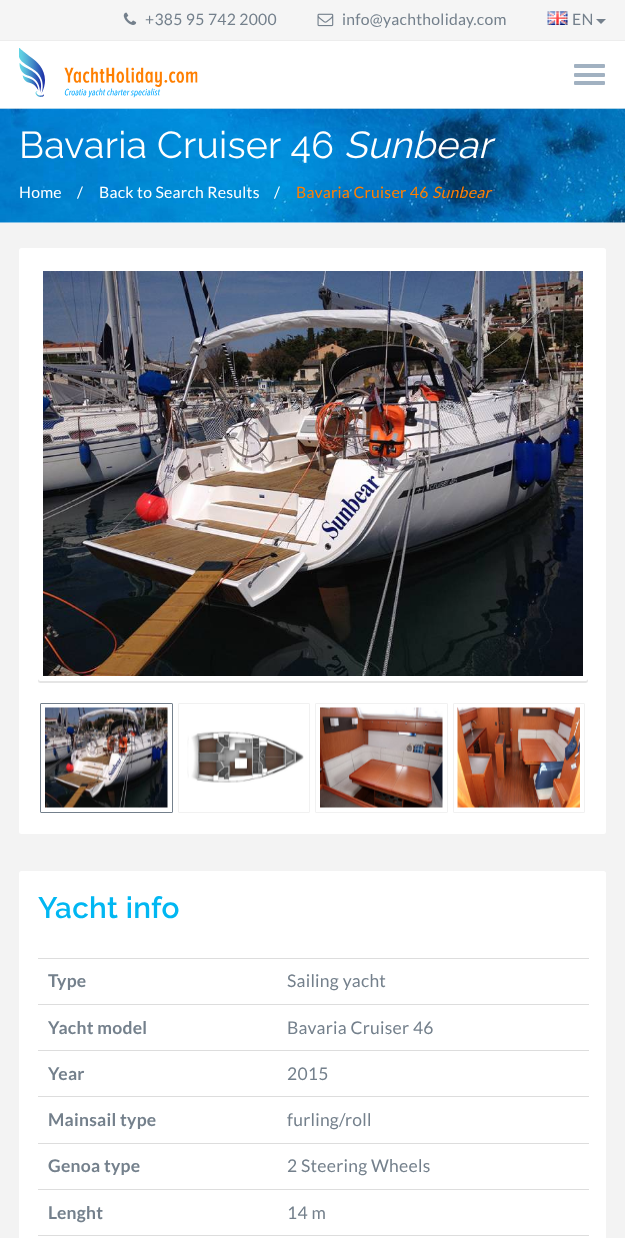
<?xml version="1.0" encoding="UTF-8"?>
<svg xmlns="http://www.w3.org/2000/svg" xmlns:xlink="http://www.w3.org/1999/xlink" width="625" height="1238">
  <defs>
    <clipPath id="clip1"><path d="M 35 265 h 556 v 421 h -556 z m 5.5 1 h 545 c 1.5 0 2.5 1 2.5 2.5 v 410 c 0 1.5 -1 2.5 -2.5 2.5 h -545 c -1.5 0 -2.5 -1 -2.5 -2.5 v -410 c 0 -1.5 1 -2.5 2.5 -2.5 z" clip-rule="evenodd" /></clipPath>
  </defs>
  <rect width="100%" height="100%" fill="#ffffff" />
  <rect width="625" height="40" fill="#f5f5f5" />
  <rect y="40" width="625" height="1" fill="#ededed" />
  <image x="123" y="12" width="14" height="13" xlink:href="image1.png" />
  <image x="317" y="13" width="17" height="14" xlink:href="image2.png" />
  <image x="547" y="11" width="21" height="14" xlink:href="image3.png" />
  <path d="M 596 19 h 10 l -5 5 z" fill="#74808c" />
  <rect y="108" width="625" height="1" fill="#e6eff2" />
  <image x="19" y="48" width="179" height="50" xlink:href="image4.png" />
  <rect x="574" y="64" width="31" height="4" rx="1" fill="#a1b1c1" />
  <rect x="574" y="73" width="31" height="4" rx="1" fill="#a1b1c1" />
  <rect x="574" y="81" width="31" height="4" rx="1" fill="#a1b1c1" />
  <image x="0" y="108" width="625" height="115" xlink:href="image5.png" />
  <rect y="223" width="625" height="1015" fill="#f3f3f3" />
  <rect x="19" y="248" width="587" height="586" rx="2.5" fill="#ffffff" />
  <g clip-path="url(#clip1)">
    <rect x="38" y="268" width="550" height="415" rx="2.5" fill="#000000" fill-opacity="0.1" filter="blur(0.5px)" />
  </g>
  <image x="43" y="271" width="540" height="405" xlink:href="image6.png" />
  <rect x="40.5" y="703.5" width="132" height="109" rx="0.5" fill="none" stroke="#74808c" />
  <image x="45" y="707" width="123" height="101" xlink:href="image7.png" />
  <rect x="178.5" y="703.5" width="131" height="109" rx="0.5" fill="none" stroke="#f1f1f1" />
  <image x="187" y="731" width="117" height="52" xlink:href="image8.png" />
  <rect x="315.5" y="703.5" width="132" height="109" rx="0.5" fill="none" stroke="#f1f1f1" />
  <image x="320" y="707" width="123" height="101" xlink:href="image9.png" />
  <rect x="453.5" y="703.5" width="131" height="109" rx="0.5" fill="none" stroke="#f1f1f1" />
  <image x="457" y="707" width="123" height="101" xlink:href="image10.png" />
  <rect x="19" y="871" width="587" height="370" rx="2.5" fill="#ffffff" />
  <rect x="38" y="958" width="551" height="1" fill="#dddddd" />
  <rect x="38" y="1004" width="551" height="1" fill="#dddddd" />
  <rect x="38" y="1050" width="551" height="1" fill="#dddddd" />
  <rect x="38" y="1096" width="551" height="1" fill="#dddddd" />
  <rect x="38" y="1143" width="551" height="1" fill="#dddddd" />
  <rect x="38" y="1189" width="551" height="1" fill="#dddddd" />
  <rect x="38" y="1235" width="551" height="1" fill="#dddddd" />
  <text x="145" y="25" style="font-family: Lato; font-size: 15.75px; letter-spacing: 0.25px; fill: #74808c">+385 95 742 2000</text>
  <text x="342" y="25" style="font-family: Lato; font-size: 15.75px; letter-spacing: 0.25px; fill: #74808c">info@yachtholiday.com</text>
  <text x="572" y="25" style="font-family: Lato; font-size: 15.75px; letter-spacing: 0.25px; fill: #74808c">EN</text>
  <text x="19" y="158" style="font-family: Raleway; font-size: 37.5px; letter-spacing: 0.25px; fill: #ffffff">Bavaria Cruiser 46</text>
  <text x="344" y="158" style="font-family: Raleway; font-size: 37.5px; font-style: italic; letter-spacing: 0.25px; fill: #ffffff">Sunbear</text>
  <text x="19" y="198" style="font-family: Lato; font-size: 15.75px; letter-spacing: 0.25px; fill: #ffffff">Home</text>
  <text x="77" y="198" style="font-family: Lato; font-size: 15.75px; letter-spacing: 0.25px; fill: #ffffff">/</text>
  <text x="99" y="198" style="font-family: Lato; font-size: 15.75px; letter-spacing: 0.25px; fill: #ffffff">Back to Search Results</text>
  <text x="274" y="198" style="font-family: Lato; font-size: 15.75px; letter-spacing: 0.25px; fill: #ffffff">/</text>
  <text x="296" y="198" style="font-family: Lato; font-size: 15.75px; letter-spacing: 0.25px; fill: #ff7f00">Bavaria Cruiser 46</text>
  <text x="432" y="198" style="font-family: Lato; font-size: 15.75px; font-style: italic; letter-spacing: 0.25px; fill: #ff7f00">Sunbear</text>
  <text x="38" y="918" style="font-family: Raleway; font-size: 29.75px; font-weight: 600; letter-spacing: 0.25px; fill: #01b7f2">Yacht info</text>
  <text x="48" y="987" style="font-family: Lato; font-size: 17.5px; font-weight: bold; letter-spacing: 0.25px; fill: #74808c">Type</text>
  <text x="287" y="987" style="font-family: Lato; font-size: 17.5px; letter-spacing: 0.25px; fill: #74808c">Sailing yacht</text>
  <text x="48" y="1034" style="font-family: Lato; font-size: 17.5px; font-weight: bold; letter-spacing: 0.25px; fill: #74808c">Yacht model</text>
  <text x="287" y="1034" style="font-family: Lato; font-size: 17.5px; letter-spacing: 0.25px; fill: #74808c">Bavaria Cruiser 46</text>
  <text x="48" y="1080" style="font-family: Lato; font-size: 17.5px; font-weight: bold; letter-spacing: 0.25px; fill: #74808c">Year</text>
  <text x="287" y="1080" style="font-family: Lato; font-size: 17.5px; letter-spacing: 0.25px; fill: #74808c">2015</text>
  <text x="48" y="1126" style="font-family: Lato; font-size: 17.5px; font-weight: bold; letter-spacing: 0.25px; fill: #74808c">Mainsail type</text>
  <text x="287" y="1126" style="font-family: Lato; font-size: 17.5px; letter-spacing: 0.25px; fill: #74808c">furling/roll</text>
  <text x="48" y="1172" style="font-family: Lato; font-size: 17.5px; font-weight: bold; letter-spacing: 0.25px; fill: #74808c">Genoa type</text>
  <text x="287" y="1172" style="font-family: Lato; font-size: 17.5px; letter-spacing: 0.25px; fill: #74808c">2 Steering Wheels</text>
  <text x="48" y="1219" style="font-family: Lato; font-size: 17.5px; font-weight: bold; letter-spacing: 0.25px; fill: #74808c">Lenght</text>
  <text x="287" y="1219" style="font-family: Lato; font-size: 17.5px; letter-spacing: 0.25px; fill: #74808c">14 m</text>
</svg>
